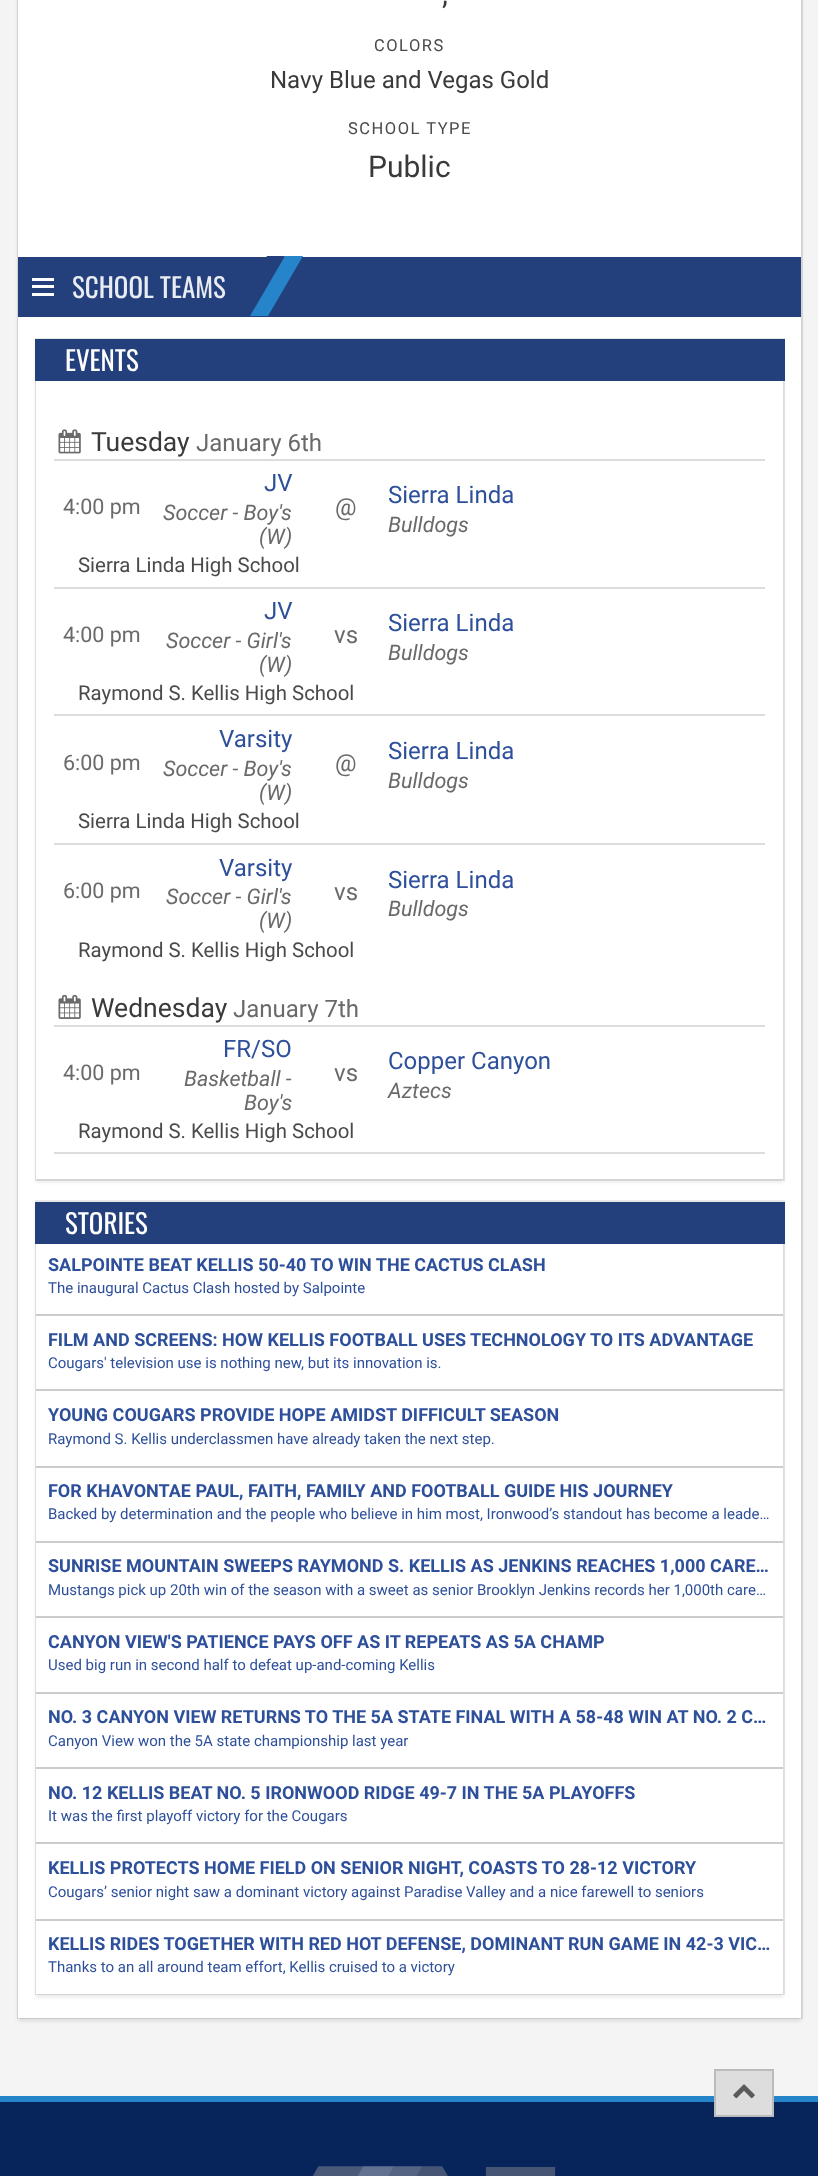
<?xml version="1.0" encoding="UTF-8"?>
<svg xmlns="http://www.w3.org/2000/svg" xmlns:xlink="http://www.w3.org/1999/xlink" width="818" height="2176">
  <rect width="100%" height="100%" fill="#f4f4f4" />
  <rect x="18" y="-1" width="784" height="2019" fill="none" stroke="#dddddd" stroke-width="2" />
  <rect x="18" y="-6" width="783" height="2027" fill="#0a0a0a" fill-opacity="0.1" filter="blur(2px)" />
  <rect x="18" width="783" height="2018" fill="#ffffff" />
  <rect x="18" y="257" width="783" height="60" fill="#23407c" />
  <rect x="32" y="278" width="22" height="3" fill="#ffffff" />
  <rect x="32" y="285" width="22" height="3" fill="#ffffff" />
  <rect x="32" y="293" width="22" height="3" fill="#ffffff" />
  <path d="M 267 256 h 18 l -35 60 h -18 z" fill="#23407c" />
  <path d="M 285 256 h 18 l -35 60 h -18 z" fill="#2684cb" />
  <rect x="36" y="339" width="748" height="841" fill="none" stroke="#e7e7e7" stroke-width="2" />
  <rect x="36" y="342" width="747" height="840" fill="#0a0a0a" fill-opacity="0.1" filter="blur(2px)" />
  <rect x="36" y="381" width="747" height="798" fill="#ffffff" />
  <rect x="35" y="339" width="750" height="42" fill="#23407c" />
  <image x="58" y="429" width="23" height="25" xlink:href="image1.png" />
  <rect x="54" y="459" width="711" height="2" fill="#dddddd" />
  <rect x="54" y="587" width="711" height="2" fill="#dddddd" />
  <rect x="54" y="714" width="711" height="2" fill="#dddddd" />
  <rect x="54" y="843" width="711" height="2" fill="#dddddd" />
  <image x="58" y="994" width="23" height="25" xlink:href="image2.png" />
  <rect x="54" y="1025" width="711" height="2" fill="#dddddd" />
  <rect x="54" y="1152" width="711" height="2" fill="#dddddd" />
  <rect x="36" y="1201" width="748" height="793" fill="none" stroke="#e7e7e7" stroke-width="2" />
  <rect x="36" y="1205" width="747" height="792" fill="#0a0a0a" fill-opacity="0.1" filter="blur(2px)" />
  <rect x="36" y="1244" width="747" height="750" fill="#ffffff" />
  <rect x="35" y="1202" width="750" height="42" fill="#23407c" />
  <rect x="36" y="1314" width="747" height="2" fill="#cccccc" />
  <rect x="36" y="1389" width="747" height="2" fill="#cccccc" />
  <rect x="36" y="1466" width="747" height="2" fill="#cccccc" />
  <rect x="36" y="1541" width="747" height="2" fill="#cccccc" />
  <rect x="36" y="1616" width="747" height="2" fill="#cccccc" />
  <rect x="36" y="1692" width="747" height="2" fill="#cccccc" />
  <rect x="36" y="1767" width="747" height="2" fill="#cccccc" />
  <rect x="36" y="1842" width="747" height="2" fill="#cccccc" />
  <rect x="36" y="1919" width="747" height="2" fill="#cccccc" />
  <rect y="2102" width="818" height="74" fill="#07245b" />
  <rect y="2096" width="818" height="6" fill="#2684cb" />
  <rect x="715" y="2070" width="58" height="46" fill="#dddddd" stroke="#bbbbbb" stroke-width="2" />
  <image x="733" y="2084" width="22" height="15" xlink:href="image3.png" />
  <image x="312" y="2166" width="244" height="10" xlink:href="image4.png" />
  <text x="442" y="4" style="font-family: Roboto; font-size: 30px; fill: #3a3a3a">,</text>
  <text x="374" y="51" style="font-family: Roboto; font-size: 16.5px; letter-spacing: 1.5px; fill: #4a4a4a">COLORS</text>
  <text x="270" y="88" style="font-family: Roboto; font-size: 24px; fill: #3a3a3a">Navy Blue and Vegas Gold</text>
  <text x="348" y="134" style="font-family: Roboto; font-size: 16.5px; letter-spacing: 1.5px; fill: #4a4a4a">SCHOOL TYPE</text>
  <text x="368" y="177" style="font-family: Roboto; font-size: 30px; fill: #3a3a3a">Public</text>
  <text x="72" y="298" style="font-family: Oswald; font-size: 27px; fill: #e9ecf2">SCHOOL TEAMS</text>
  <text x="65" y="371" style="font-family: Oswald; font-size: 27px; fill: #ffffff">EVENTS</text>
  <text x="91" y="451" style="font-family: Roboto; font-size: 26.5px; fill: #3a3a3a">Tuesday</text>
  <text x="196" y="451" style="font-family: Roboto; font-size: 24px; fill: #6a6a6a">January 6th</text>
  <text x="63" y="514" style="font-family: Roboto; font-size: 21.5px; fill: #6a6a6a">4:00 pm</text>
  <text x="264" y="491" style="font-family: Roboto; font-size: 24px; fill: #2e509b">JV</text>
  <text x="163" y="520" style="font-family: Roboto; font-size: 21.5px; font-style: italic; fill: #6a6a6a">Soccer - Boy's</text>
  <text x="259" y="544" style="font-family: Roboto; font-size: 21.5px; font-style: italic; fill: #6a6a6a">(W)</text>
  <text x="335" y="515" style="font-family: Roboto; font-size: 24px; fill: #6a6a6a">@</text>
  <text x="388" y="503" style="font-family: Roboto; font-size: 24px; fill: #2e509b">Sierra Linda</text>
  <text x="388" y="532" style="font-family: Roboto; font-size: 21.5px; font-style: italic; fill: #6a6a6a">Bulldogs</text>
  <text x="78" y="572" style="font-family: Roboto; font-size: 20.4px; fill: #4a4a4a">Sierra Linda High School</text>
  <text x="63" y="642" style="font-family: Roboto; font-size: 21.5px; fill: #6a6a6a">4:00 pm</text>
  <text x="264" y="619" style="font-family: Roboto; font-size: 24px; fill: #2e509b">JV</text>
  <text x="166" y="648" style="font-family: Roboto; font-size: 21.5px; font-style: italic; fill: #6a6a6a">Soccer - Girl's</text>
  <text x="259" y="672" style="font-family: Roboto; font-size: 21.5px; font-style: italic; fill: #6a6a6a">(W)</text>
  <text x="334" y="643" style="font-family: Roboto; font-size: 24px; fill: #6a6a6a">vs</text>
  <text x="388" y="631" style="font-family: Roboto; font-size: 24px; fill: #2e509b">Sierra Linda</text>
  <text x="388" y="660" style="font-family: Roboto; font-size: 21.5px; font-style: italic; fill: #6a6a6a">Bulldogs</text>
  <text x="78" y="700" style="font-family: Roboto; font-size: 20.4px; fill: #4a4a4a">Raymond S. Kellis High School</text>
  <text x="63" y="770" style="font-family: Roboto; font-size: 21.5px; fill: #6a6a6a">6:00 pm</text>
  <text x="219" y="747" style="font-family: Roboto; font-size: 24px; fill: #2e509b">Varsity</text>
  <text x="163" y="776" style="font-family: Roboto; font-size: 21.5px; font-style: italic; fill: #6a6a6a">Soccer - Boy's</text>
  <text x="259" y="800" style="font-family: Roboto; font-size: 21.5px; font-style: italic; fill: #6a6a6a">(W)</text>
  <text x="335" y="771" style="font-family: Roboto; font-size: 24px; fill: #6a6a6a">@</text>
  <text x="388" y="759" style="font-family: Roboto; font-size: 24px; fill: #2e509b">Sierra Linda</text>
  <text x="388" y="788" style="font-family: Roboto; font-size: 21.5px; font-style: italic; fill: #6a6a6a">Bulldogs</text>
  <text x="78" y="828" style="font-family: Roboto; font-size: 20.4px; fill: #4a4a4a">Sierra Linda High School</text>
  <text x="63" y="898" style="font-family: Roboto; font-size: 21.5px; fill: #6a6a6a">6:00 pm</text>
  <text x="219" y="876" style="font-family: Roboto; font-size: 24px; fill: #2e509b">Varsity</text>
  <text x="166" y="904" style="font-family: Roboto; font-size: 21.5px; font-style: italic; fill: #6a6a6a">Soccer - Girl's</text>
  <text x="259" y="928" style="font-family: Roboto; font-size: 21.5px; font-style: italic; fill: #6a6a6a">(W)</text>
  <text x="334" y="900" style="font-family: Roboto; font-size: 24px; fill: #6a6a6a">vs</text>
  <text x="388" y="888" style="font-family: Roboto; font-size: 24px; fill: #2e509b">Sierra Linda</text>
  <text x="388" y="916" style="font-family: Roboto; font-size: 21.5px; font-style: italic; fill: #6a6a6a">Bulldogs</text>
  <text x="78" y="957" style="font-family: Roboto; font-size: 20.4px; fill: #4a4a4a">Raymond S. Kellis High School</text>
  <text x="91" y="1017" style="font-family: Roboto; font-size: 26.5px; fill: #3a3a3a">Wednesday</text>
  <text x="233" y="1017" style="font-family: Roboto; font-size: 24px; fill: #6a6a6a">January 7th</text>
  <text x="63" y="1080" style="font-family: Roboto; font-size: 21.5px; fill: #6a6a6a">4:00 pm</text>
  <text x="223" y="1057" style="font-family: Roboto; font-size: 24px; fill: #2e509b">FR/SO</text>
  <text x="184" y="1086" style="font-family: Roboto; font-size: 21.5px; font-style: italic; fill: #6a6a6a">Basketball -</text>
  <text x="244" y="1110" style="font-family: Roboto; font-size: 21.5px; font-style: italic; fill: #6a6a6a">Boy's</text>
  <text x="334" y="1081" style="font-family: Roboto; font-size: 24px; fill: #6a6a6a">vs</text>
  <text x="388" y="1069" style="font-family: Roboto; font-size: 24px; fill: #2e509b">Copper Canyon</text>
  <text x="388" y="1098" style="font-family: Roboto; font-size: 21.5px; font-style: italic; fill: #6a6a6a">Aztecs</text>
  <text x="78" y="1138" style="font-family: Roboto; font-size: 20.4px; fill: #4a4a4a">Raymond S. Kellis High School</text>
  <text x="65" y="1234" style="font-family: Oswald; font-size: 27px; fill: #ffffff">STORIES</text>
  <text x="48" y="1271" style="font-family: Roboto; font-size: 18px; font-weight: bold; fill: #2e509b">SALPOINTE BEAT KELLIS 50-40 TO WIN THE CACTUS CLASH</text>
  <text x="48" y="1293" style="font-family: Roboto; font-size: 15px; fill: #2e509b">The inaugural Cactus Clash hosted by Salpointe</text>
  <text x="48" y="1346" style="font-family: Roboto; font-size: 18px; font-weight: bold; fill: #2e509b">FILM AND SCREENS: HOW KELLIS FOOTBALL USES TECHNOLOGY TO ITS ADVANTAGE</text>
  <text x="48" y="1368" style="font-family: Roboto; font-size: 15px; fill: #2e509b">Cougars' television use is nothing new, but its innovation is.</text>
  <text x="48" y="1421" style="font-family: Roboto; font-size: 18px; font-weight: bold; fill: #2e509b">YOUNG COUGARS PROVIDE HOPE AMIDST DIFFICULT SEASON</text>
  <text x="48" y="1444" style="font-family: Roboto; font-size: 15px; fill: #2e509b">Raymond S. Kellis underclassmen have already taken the next step.</text>
  <text x="48" y="1497" style="font-family: Roboto; font-size: 18px; font-weight: bold; fill: #2e509b">FOR KHAVONTAE PAUL, FAITH, FAMILY AND FOOTBALL GUIDE HIS JOURNEY</text>
  <text x="48" y="1519" style="font-family: Roboto; font-size: 15px; fill: #2e509b">Backed by determination and the people who believe in him most, Ironwood’s standout has become a leade…</text>
  <text x="48" y="1572" style="font-family: Roboto; font-size: 18px; font-weight: bold; fill: #2e509b">SUNRISE MOUNTAIN SWEEPS RAYMOND S. KELLIS AS JENKINS REACHES 1,000 CARE…</text>
  <text x="48" y="1595" style="font-family: Roboto; font-size: 15px; fill: #2e509b">Mustangs pick up 20th win of the season with a sweet as senior Brooklyn Jenkins records her 1,000th care…</text>
  <text x="48" y="1648" style="font-family: Roboto; font-size: 18px; font-weight: bold; fill: #2e509b">CANYON VIEW'S PATIENCE PAYS OFF AS IT REPEATS AS 5A CHAMP</text>
  <text x="48" y="1670" style="font-family: Roboto; font-size: 15px; fill: #2e509b">Used big run in second half to defeat up-and-coming Kellis</text>
  <text x="48" y="1723" style="font-family: Roboto; font-size: 18px; font-weight: bold; fill: #2e509b">NO. 3 CANYON VIEW RETURNS TO THE 5A STATE FINAL WITH A 58-48 WIN AT NO. 2 C…</text>
  <text x="48" y="1746" style="font-family: Roboto; font-size: 15px; fill: #2e509b">Canyon View won the 5A state championship last year</text>
  <text x="48" y="1799" style="font-family: Roboto; font-size: 18px; font-weight: bold; fill: #2e509b">NO. 12 KELLIS BEAT NO. 5 IRONWOOD RIDGE 49-7 IN THE 5A PLAYOFFS</text>
  <text x="48" y="1821" style="font-family: Roboto; font-size: 15px; fill: #2e509b">It was the first playoff victory for the Cougars</text>
  <text x="48" y="1874" style="font-family: Roboto; font-size: 18px; font-weight: bold; fill: #2e509b">KELLIS PROTECTS HOME FIELD ON SENIOR NIGHT, COASTS TO 28-12 VICTORY</text>
  <text x="48" y="1897" style="font-family: Roboto; font-size: 15px; fill: #2e509b">Cougars’ senior night saw a dominant victory against Paradise Valley and a nice farewell to seniors</text>
  <text x="48" y="1950" style="font-family: Roboto; font-size: 18px; font-weight: bold; fill: #2e509b">KELLIS RIDES TOGETHER WITH RED HOT DEFENSE, DOMINANT RUN GAME IN 42-3 VIC…</text>
  <text x="48" y="1972" style="font-family: Roboto; font-size: 15px; fill: #2e509b">Thanks to an all around team effort, Kellis cruised to a victory</text>
</svg>
